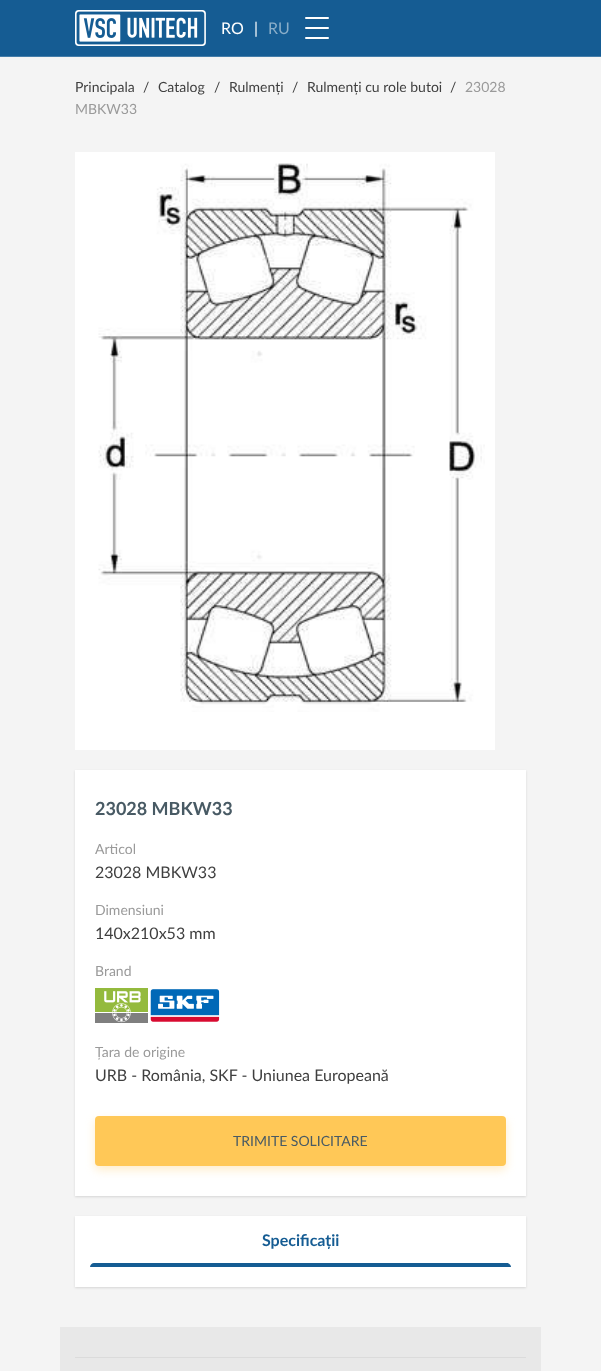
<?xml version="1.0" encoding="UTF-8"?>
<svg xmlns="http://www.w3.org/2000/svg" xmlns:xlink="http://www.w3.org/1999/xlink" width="601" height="1371">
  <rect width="100%" height="100%" fill="#f4f4f4" />
  <rect width="601" height="56" fill="#155c93" />
  <rect y="56" width="601" height="1" fill="#447da9" />
  <image x="75" y="10" width="131" height="36" xlink:href="image1.png" />
  <rect x="305" y="17" width="24" height="2" rx="1" fill="#ffffff" />
  <rect x="305" y="27" width="24" height="2" rx="1" fill="#ffffff" />
  <rect x="305" y="37" width="24" height="2" rx="1" fill="#ffffff" />
  <rect x="75" y="152" width="420" height="598" fill="#ffffff" />
  <image x="98" y="163" width="387" height="549" xlink:href="image2.png" />
  <rect x="75" y="771" width="451" height="426" fill="#000000" fill-opacity="0.12" filter="blur(1px)" />
  <rect x="75" y="770" width="451" height="426" fill="#ffffff" />
  <image x="95" y="988" width="125" height="35" xlink:href="image3.png" />
  <rect x="95" y="1120" width="411" height="50" rx="4" fill="#ffc857" fill-opacity="0.3" filter="blur(5px)" />
  <rect x="95" y="1116" width="411" height="50" rx="4" fill="#ffc857" />
  <rect x="75" y="1217" width="451" height="71" fill="#000000" fill-opacity="0.12" filter="blur(1px)" />
  <rect x="75" y="1216" width="451" height="71" fill="#ffffff" />
  <path d="M 94 1263 h 413 c 2 0 4 2 4 4 h -421 c 0 -2 2 -4 4 -4 z" fill="#155c93" />
  <rect x="60" y="1327" width="481" height="44" fill="#e8e8e8" />
  <rect x="75" y="1357" width="451" height="1" fill="#dbdbdb" />
  <text x="221" y="34" style="font-family: Lato; font-size: 16px; fill: #ffffff">RO</text>
  <text x="254" y="34" style="font-family: Lato; font-size: 16px; fill: #ffffff">|</text>
  <text x="268" y="34" style="font-family: Lato; font-size: 16px; fill: #8aaec9">RU</text>
  <text x="75" y="92" style="font-family: Lato; font-size: 14px; fill: #3f3f3f">Principala</text>
  <text x="143" y="92" style="font-family: Lato; font-size: 14px; fill: #3f3f3f">/</text>
  <text x="158" y="92" style="font-family: Lato; font-size: 14px; fill: #3f3f3f">Catalog</text>
  <text x="214" y="92" style="font-family: Lato; font-size: 14px; fill: #3f3f3f">/</text>
  <text x="229" y="92" style="font-family: Lato; font-size: 14px; fill: #3f3f3f">Rulmenți</text>
  <text x="292" y="92" style="font-family: Lato; font-size: 14px; fill: #3f3f3f">/</text>
  <text x="307" y="92" style="font-family: Lato; font-size: 14px; fill: #3f3f3f">Rulmenți cu role butoi</text>
  <text x="450" y="92" style="font-family: Lato; font-size: 14px; fill: #3f3f3f">/</text>
  <text x="465" y="92" style="font-family: Lato; font-size: 14px; fill: #9a9a9a">23028</text>
  <text x="75" y="114" style="font-family: Lato; font-size: 14px; fill: #9a9a9a">MBKW33</text>
  <text x="95" y="815" style="font-family: Lato; font-size: 18px; font-weight: bold; fill: #485a64">23028 MBKW33</text>
  <text x="95" y="854" style="font-family: Lato; font-size: 14px; fill: #9a9a9a">Articol</text>
  <text x="95" y="878" style="font-family: Lato; font-size: 16px; fill: #3f3f3f">23028 MBKW33</text>
  <text x="95" y="915" style="font-family: Lato; font-size: 14px; fill: #9a9a9a">Dimensiuni</text>
  <text x="95" y="939" style="font-family: Lato; font-size: 16px; fill: #3f3f3f">140x210x53 mm</text>
  <text x="95" y="976" style="font-family: Lato; font-size: 14px; fill: #9a9a9a">Brand</text>
  <text x="95" y="1057" style="font-family: Lato; font-size: 14px; fill: #9a9a9a">Țara de origine</text>
  <text x="95" y="1081" style="font-family: Lato; font-size: 16px; fill: #3f3f3f">URB - România, SKF - Uniunea Europeană</text>
  <text x="233" y="1146" style="font-family: Lato; font-size: 14px; fill: #485a64">TRIMITE SOLICITARE</text>
  <text x="262" y="1246" style="font-family: Lato; font-size: 16px; font-weight: bold; fill: #155c93">Specificații</text>
</svg>
